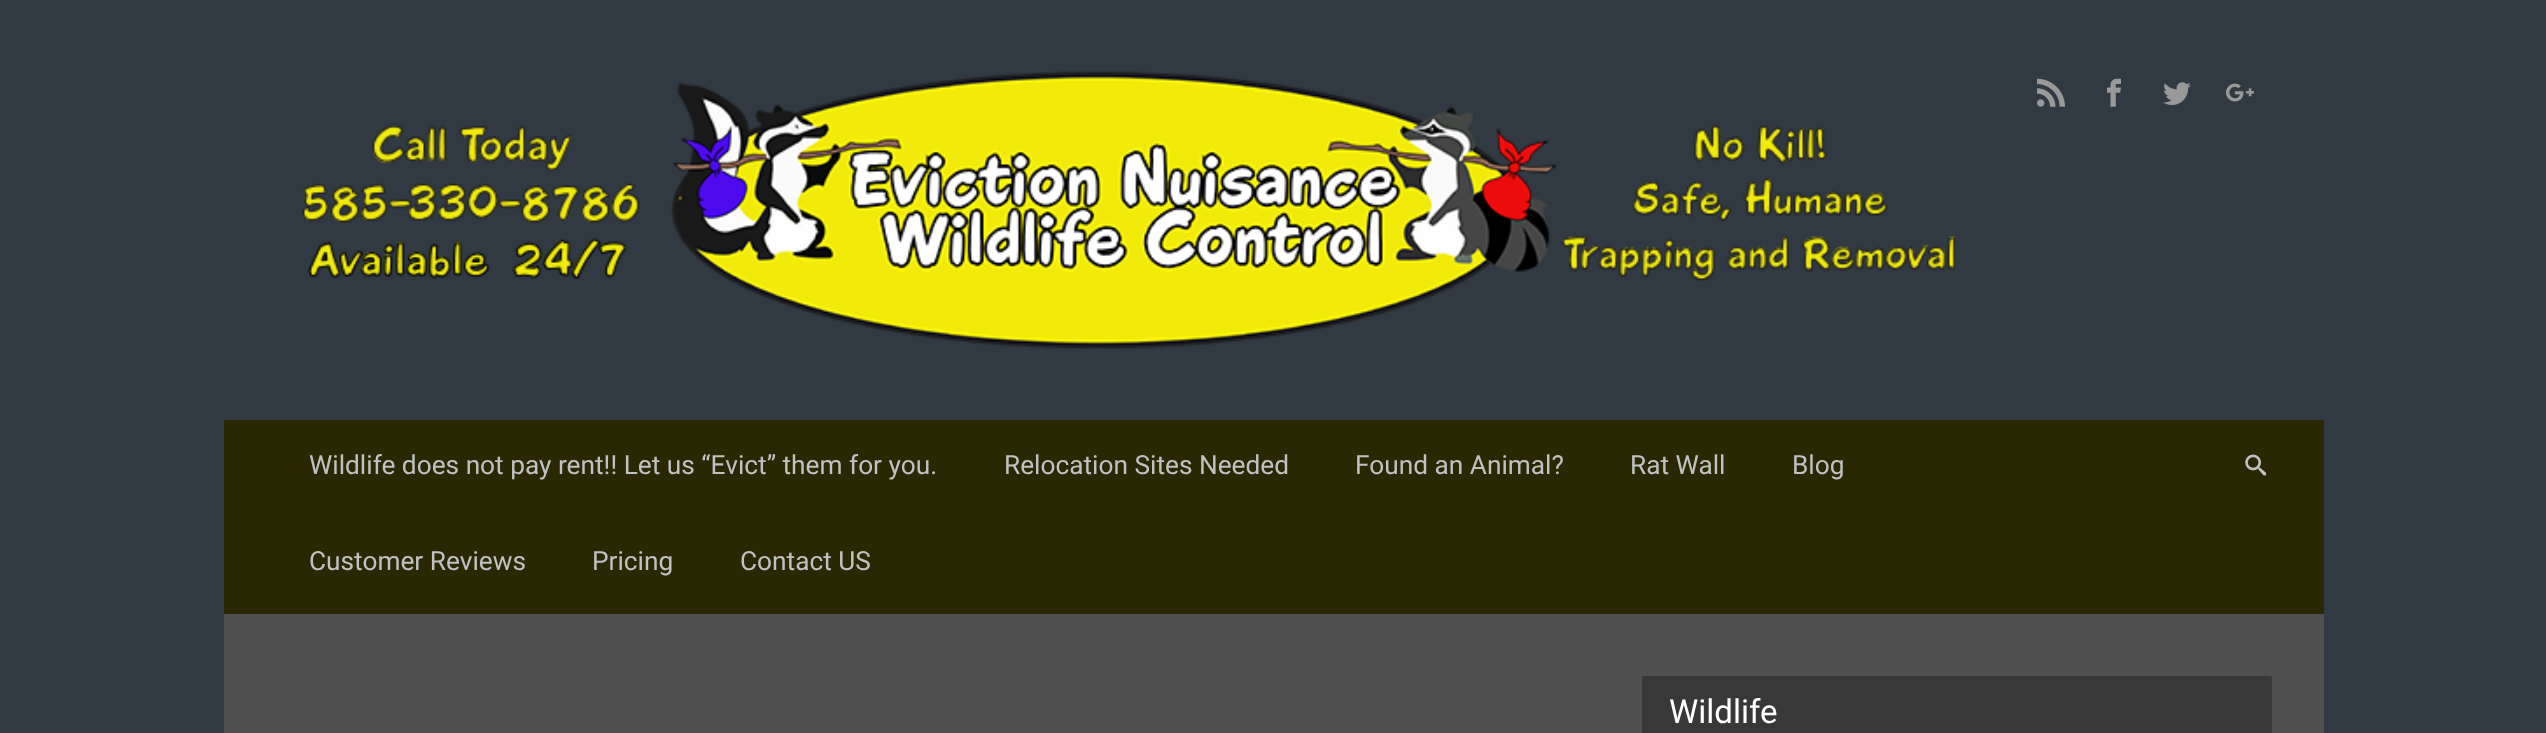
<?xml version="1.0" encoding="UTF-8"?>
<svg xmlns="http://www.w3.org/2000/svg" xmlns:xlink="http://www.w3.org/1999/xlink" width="2546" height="733">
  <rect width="100%" height="100%" fill="#313a43" />
  <image x="302" y="71" width="1655" height="278" xlink:href="image1.png" />
  <image x="2037" y="78" width="28" height="29" xlink:href="image2.png" />
  <image x="2107" y="78" width="14" height="29" xlink:href="image3.png" />
  <image x="2163" y="82" width="28" height="23" xlink:href="image4.png" />
  <image x="2226" y="83" width="28" height="19" xlink:href="image5.png" />
  <rect x="224" y="420" width="2100" height="194" fill="#292803" />
  <image x="2245" y="454" width="22" height="22" xlink:href="image6.png" />
  <rect x="224" y="614" width="2100" height="119" fill="#505050" />
  <rect x="1643" y="677" width="628" height="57" fill="none" stroke="#404040" stroke-width="2" />
  <path d="M 1647 676 h 620 c 3 0 5 2 5 5 v 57 h -630 v -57 c 0 -3 2 -5 5 -5 z" fill="#383838" />
  <text x="309" y="474" style="font-family: Roboto; font-size: 26.25px; fill: #c1c1c1">Wildlife does not pay rent!! Let us “Evict” them for you.</text>
  <text x="1004" y="474" style="font-family: Roboto; font-size: 26.25px; fill: #c1c1c1">Relocation Sites Needed</text>
  <text x="1355" y="474" style="font-family: Roboto; font-size: 26.25px; fill: #c1c1c1">Found an Animal?</text>
  <text x="1630" y="474" style="font-family: Roboto; font-size: 26.25px; fill: #c1c1c1">Rat Wall</text>
  <text x="1792" y="474" style="font-family: Roboto; font-size: 26.25px; fill: #c1c1c1">Blog</text>
  <text x="309" y="570" style="font-family: Roboto; font-size: 26.25px; fill: #c1c1c1">Customer Reviews</text>
  <text x="592" y="570" style="font-family: Roboto; font-size: 26.25px; fill: #c1c1c1">Pricing</text>
  <text x="740" y="570" style="font-family: Roboto; font-size: 26.25px; fill: #c1c1c1">Contact US</text>
  <text x="1669" y="723" style="font-family: Roboto; font-size: 33px; fill: #ffffff">Wildlife</text>
</svg>
